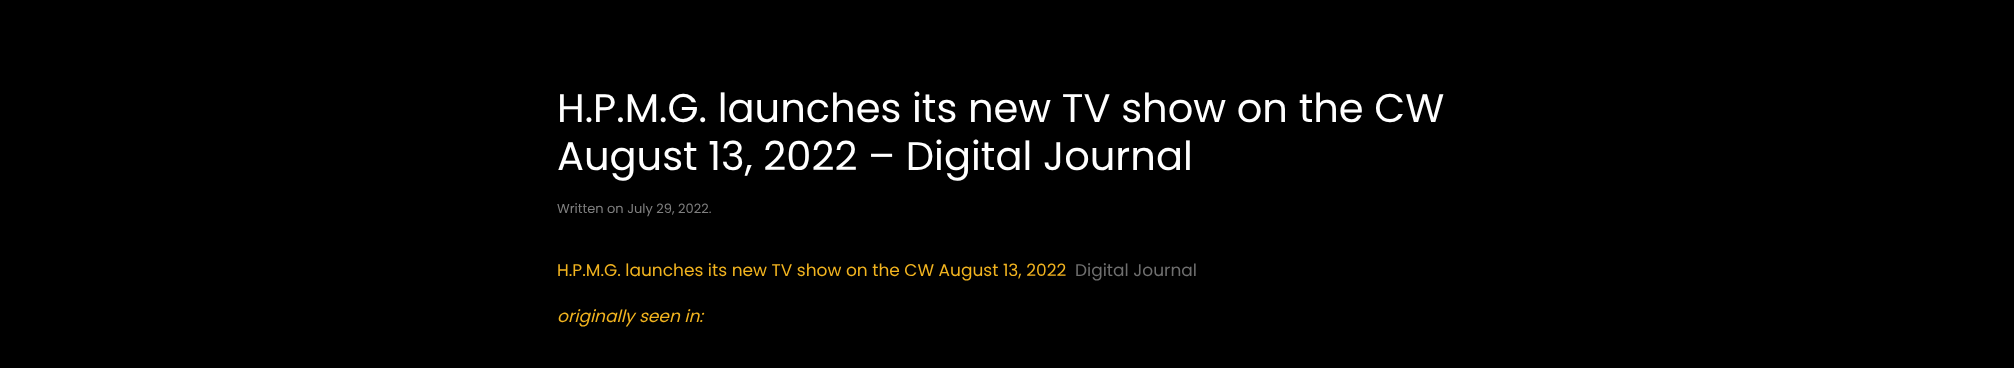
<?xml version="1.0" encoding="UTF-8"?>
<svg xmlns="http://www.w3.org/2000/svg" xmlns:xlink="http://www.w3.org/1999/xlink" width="2014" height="368">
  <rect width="100%" height="100%" fill="#000000" />
  <text x="557" y="122" style="font-family: Poppins; font-size: 40px; fill: #ffffff">H.P.M.G. launches its new TV show on the CW</text>
  <text x="557" y="170" style="font-family: Poppins; font-size: 40px; fill: #ffffff">August 13, 2022 – Digital Journal</text>
  <text x="557" y="213" style="font-family: Poppins; font-size: 13px; fill: #808080">Written on July 29, 2022.</text>
  <text x="557" y="276" style="font-family: Poppins; font-size: 17px; fill: #f2b41f">H.P.M.G. launches its new TV show on the CW August 13, 2022</text>
  <text x="1075" y="276" style="font-family: Poppins; font-size: 17px; fill: #6f6f6f">Digital Journal</text>
  <text x="557" y="322" style="font-family: Poppins; font-size: 17px; font-style: italic; fill: #f2b41f">originally seen in:</text>
</svg>
